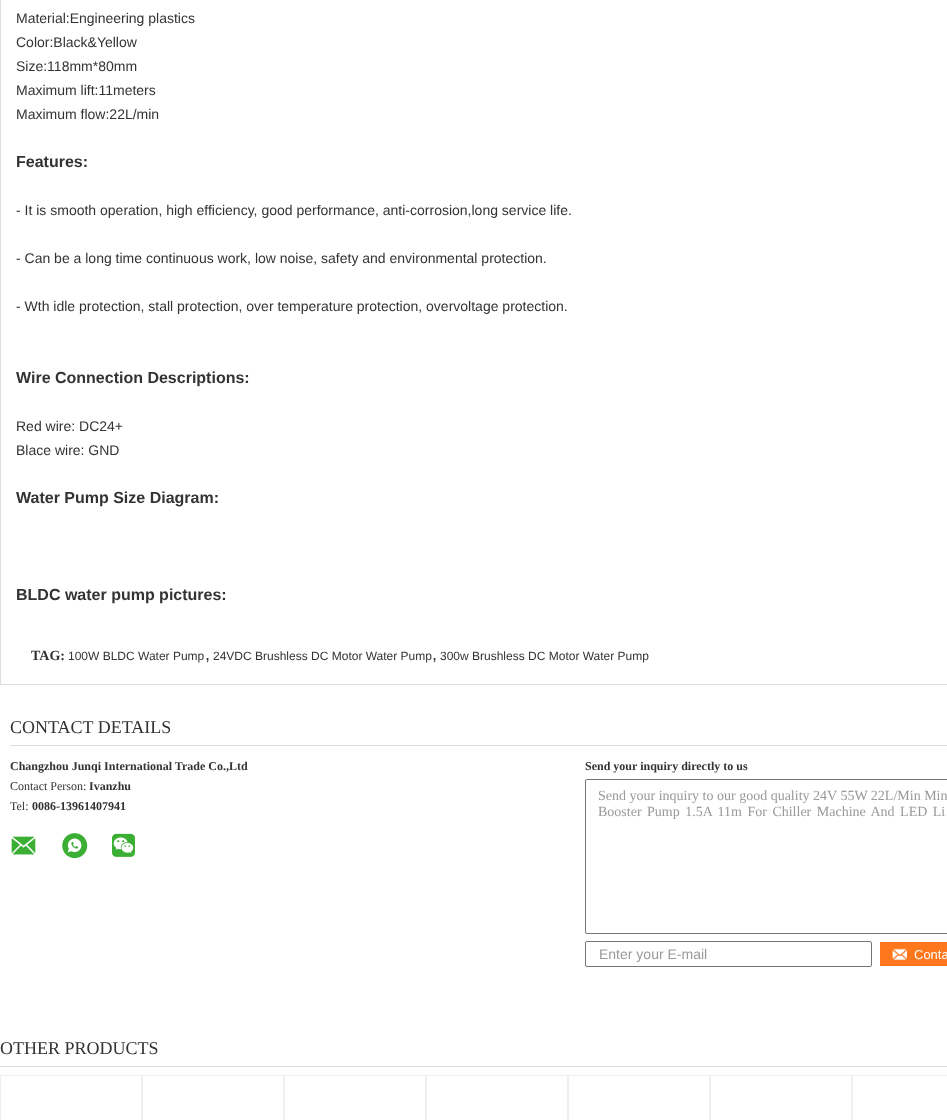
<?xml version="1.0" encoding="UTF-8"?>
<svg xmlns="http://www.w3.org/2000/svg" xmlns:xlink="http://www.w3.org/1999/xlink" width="947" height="1120">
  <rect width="100%" height="100%" fill="#ffffff" />
  <rect x="0.5" y="-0.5" width="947" height="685" fill="none" stroke="#dddddd" />
  <rect x="10" y="745" width="937" height="1" fill="#dddddd" />
  <image x="11" y="836" width="25" height="19" xlink:href="image1.png" />
  <image x="62" y="833" width="26" height="26" xlink:href="image2.png" />
  <image x="112" y="833" width="23" height="24" xlink:href="image3.png" />
  <rect x="585.5" y="779.5" width="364" height="154" rx="1.5" fill="none" stroke="#767676" />
  <rect x="585.5" y="941.5" width="286" height="25" rx="1.5" fill="none" stroke="#767676" />
  <rect x="880" y="942" width="67" height="24" fill="#ff771c" />
  <image x="892" y="948" width="15" height="12" xlink:href="image4.png" />
  <rect y="1066" width="947" height="1" fill="#dddddd" />
  <rect x="0.5" y="1075.5" width="141" height="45" fill="none" stroke="#eeeeee" />
  <rect x="142.5" y="1075.5" width="141" height="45" fill="none" stroke="#eeeeee" />
  <rect x="284.5" y="1075.5" width="141" height="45" fill="none" stroke="#eeeeee" />
  <rect x="426.5" y="1075.5" width="141" height="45" fill="none" stroke="#eeeeee" />
  <rect x="568.5" y="1075.5" width="141" height="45" fill="none" stroke="#eeeeee" />
  <rect x="710.5" y="1075.5" width="141" height="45" fill="none" stroke="#eeeeee" />
  <rect x="852.5" y="1075.5" width="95" height="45" fill="none" stroke="#eeeeee" />
  <text x="16" y="23" style="font-family: Liberation Sans; font-size: 14px; fill: #333333">Material:Engineering plastics</text>
  <text x="16" y="47" style="font-family: Liberation Sans; font-size: 14px; fill: #333333">Color:Black&amp;Yellow</text>
  <text x="16" y="71" style="font-family: Liberation Sans; font-size: 14px; fill: #333333">Size:118mm*80mm</text>
  <text x="16" y="95" style="font-family: Liberation Sans; font-size: 14px; fill: #333333">Maximum lift:11meters</text>
  <text x="16" y="119" style="font-family: Liberation Sans; font-size: 14px; fill: #333333">Maximum flow:22L/min</text>
  <text x="16" y="167" style="font-family: Liberation Sans; font-size: 16px; font-weight: bold; fill: #333333">Features:</text>
  <text x="16" y="215" style="font-family: Liberation Sans; font-size: 14px; fill: #333333">- It is smooth operation, high efficiency, good performance, anti-corrosion,long service life.</text>
  <text x="16" y="263" style="font-family: Liberation Sans; font-size: 14px; fill: #333333">- Can be a long time continuous work, low noise, safety and environmental protection.</text>
  <text x="16" y="311" style="font-family: Liberation Sans; font-size: 14px; fill: #333333">- Wth idle protection, stall protection, over temperature protection, overvoltage protection.</text>
  <text x="16" y="383" style="font-family: Liberation Sans; font-size: 16px; font-weight: bold; fill: #333333">Wire Connection Descriptions:</text>
  <text x="16" y="431" style="font-family: Liberation Sans; font-size: 14px; fill: #333333">Red wire: DC24+</text>
  <text x="16" y="455" style="font-family: Liberation Sans; font-size: 14px; fill: #333333">Blace wire: GND</text>
  <text x="16" y="503" style="font-family: Liberation Sans; font-size: 16px; font-weight: bold; fill: #333333">Water Pump Size Diagram:</text>
  <text x="16" y="600" style="font-family: Liberation Sans; font-size: 16px; font-weight: bold; fill: #333333">BLDC water pump pictures:</text>
  <text x="31" y="660" style="font-family: Liberation Serif; font-size: 14px; font-weight: bold; fill: #333333">TAG:</text>
  <text x="68" y="660" style="font-family: Liberation Sans; font-size: 12px; fill: #333333">100W BLDC Water Pump</text>
  <text x="205" y="660" style="font-family: Liberation Sans; font-size: 18px; fill: #333333">,</text>
  <text x="213" y="660" style="font-family: Liberation Sans; font-size: 12px; fill: #333333">24VDC Brushless DC Motor Water Pump</text>
  <text x="432" y="660" style="font-family: Liberation Sans; font-size: 18px; fill: #333333">,</text>
  <text x="440" y="660" style="font-family: Liberation Sans; font-size: 12px; fill: #333333">300w Brushless DC Motor Water Pump</text>
  <text x="10" y="733" style="font-family: Liberation Serif; font-size: 18px; fill: #333333">CONTACT DETAILS</text>
  <text x="10" y="770" style="font-family: Liberation Serif; font-size: 12px; font-weight: bold; fill: #333333">Changzhou Junqi International Trade Co.,Ltd</text>
  <text x="10" y="790" style="font-family: Liberation Serif; font-size: 12px; fill: #333333">Contact Person:</text>
  <text x="89" y="790" style="font-family: Liberation Serif; font-size: 12px; font-weight: bold; fill: #333333">Ivanzhu</text>
  <text x="10" y="810" style="font-family: Liberation Serif; font-size: 12px; fill: #333333">Tel:</text>
  <text x="32" y="810" style="font-family: Liberation Serif; font-size: 12px; font-weight: bold; fill: #333333">0086-13961407941</text>
  <text x="585" y="770" style="font-family: Liberation Serif; font-size: 12px; font-weight: bold; fill: #333333">Send your inquiry directly to us</text>
  <text x="598" y="800" style="font-family: Liberation Serif; font-size: 14px; fill: #999999">Send your inquiry to our good quality 24V 55W 22L/Min Min</text>
  <text x="598" y="816" word-spacing="2" style="font-family: Liberation Serif; font-size: 14px; fill: #999999">Booster Pump 1.5A 11m For Chiller Machine And LED Li</text>
  <text x="599" y="959" style="font-family: Liberation Sans; font-size: 14px; fill: #999999">Enter your E-mail</text>
  <text x="914" y="959" style="font-family: Liberation Sans; font-size: 13px; fill: #ffffff">Conta</text>
  <text x="0" y="1054" style="font-family: Liberation Serif; font-size: 18px; fill: #333333">OTHER PRODUCTS</text>
</svg>
